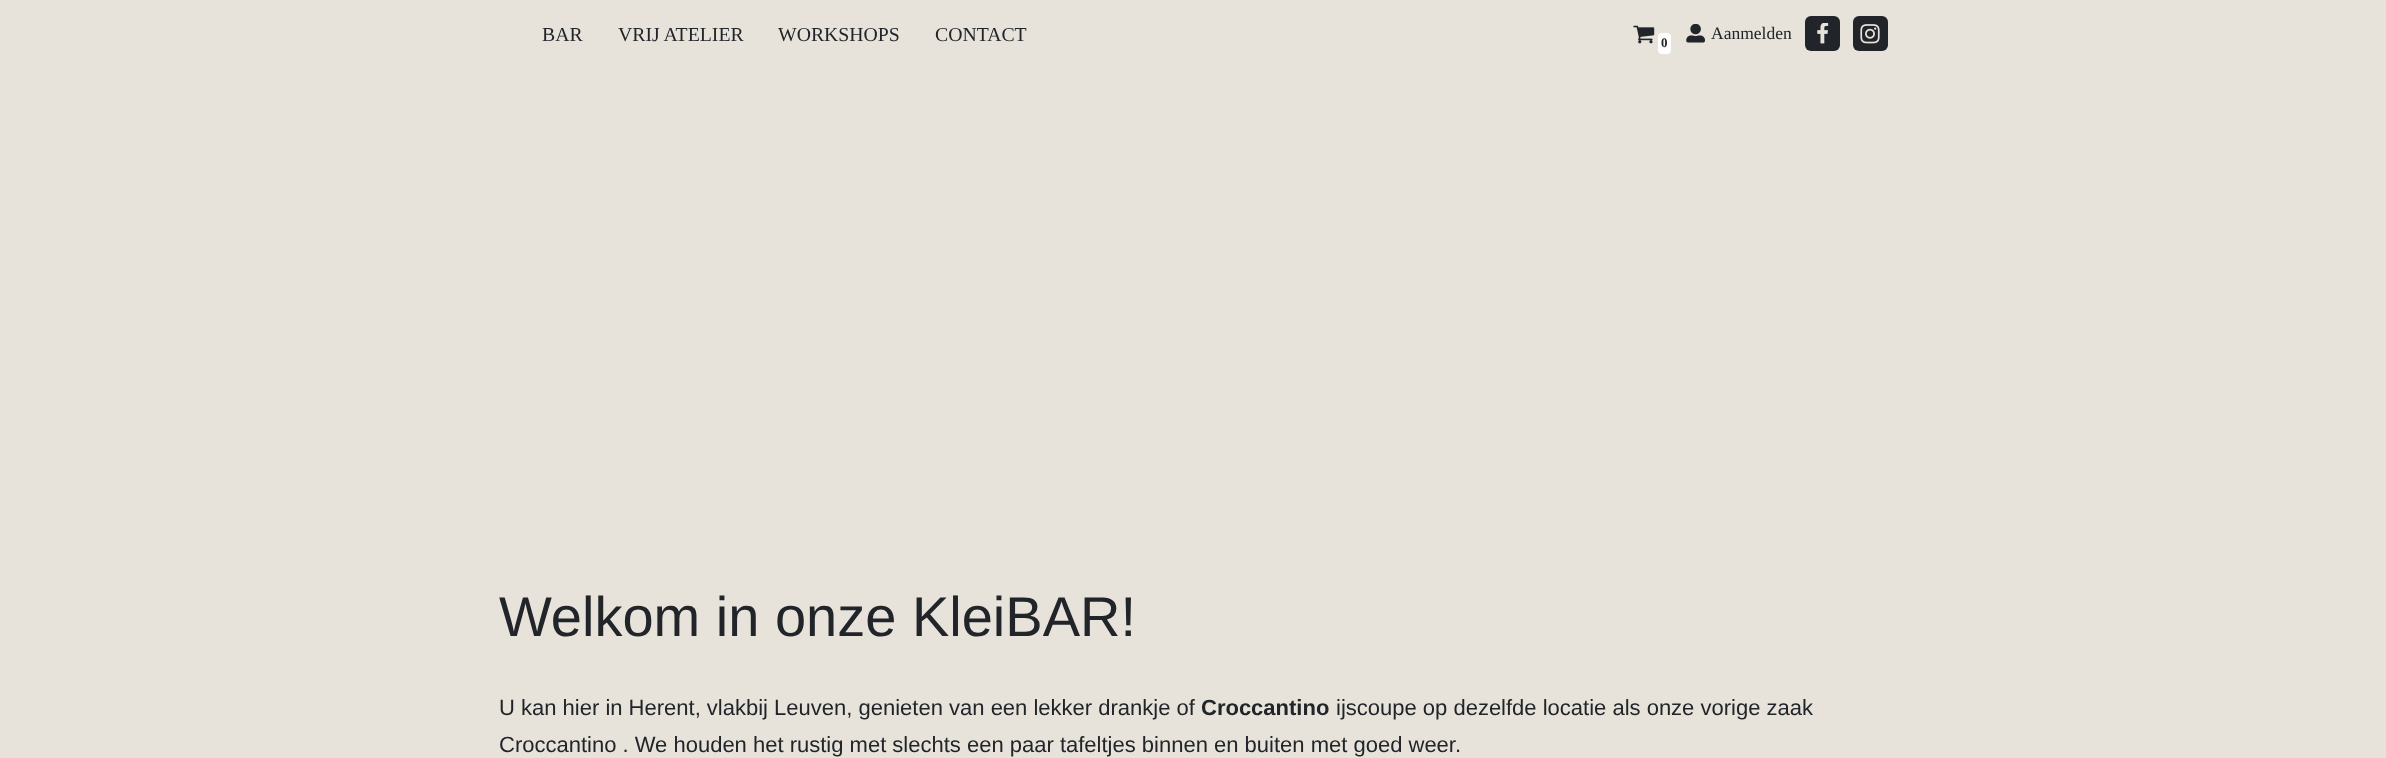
<?xml version="1.0" encoding="UTF-8"?>
<svg xmlns="http://www.w3.org/2000/svg" xmlns:xlink="http://www.w3.org/1999/xlink" width="2386" height="758">
  <rect width="100%" height="100%" fill="#e7e3da" />
  <image x="1686" y="24" width="19" height="19" xlink:href="image1.png" />
  <rect x="1805" y="16" width="35" height="35" rx="6" fill="#212529" />
  <image x="1817" y="23" width="12" height="21" xlink:href="image2.png" />
  <rect x="1853" y="16" width="35" height="35" rx="6" fill="#212529" />
  <image x="1860" y="24" width="20" height="20" xlink:href="image3.png" />
  <image x="1633" y="25" width="22" height="19" xlink:href="image4.png" />
  <rect x="1658" y="33" width="13" height="21" rx="4" fill="#fffffd" />
  <text x="542" y="41" style="font-family: Liberation Serif; font-size: 19.75px; fill: #212529">BAR</text>
  <text x="618" y="41" style="font-family: Liberation Serif; font-size: 19.75px; fill: #212529">VRIJ ATELIER</text>
  <text x="778" y="41" style="font-family: Liberation Serif; font-size: 19.75px; fill: #212529">WORKSHOPS</text>
  <text x="935" y="41" style="font-family: Liberation Serif; font-size: 19.75px; fill: #212529">CONTACT</text>
  <text x="1711" y="39" style="font-family: Liberation Serif; font-size: 17.5px; fill: #212529">Aanmelden</text>
  <text x="1661" y="47" style="font-family: Liberation Serif; font-size: 13px; font-weight: bold; fill: #212529">0</text>
  <text x="499" y="636" style="font-family: Liberation Sans; font-size: 56px; fill: #212529">Welkom in onze KleiBAR!</text>
  <text x="499" y="715" style="font-family: Liberation Sans; font-size: 22px; fill: #212529">U kan hier in Herent, vlakbij Leuven, genieten van een lekker drankje of</text>
  <text x="1201" y="715" style="font-family: Liberation Sans; font-size: 22px; font-weight: bold; fill: #212529">Croccantino</text>
  <text x="1336" y="715" style="font-family: Liberation Sans; font-size: 22px; fill: #212529">ijscoupe op dezelfde locatie als onze vorige zaak</text>
  <text x="499" y="752" style="font-family: Liberation Sans; font-size: 22px; fill: #212529">Croccantino . We houden het rustig met slechts een paar tafeltjes binnen en buiten met goed weer.</text>
</svg>
